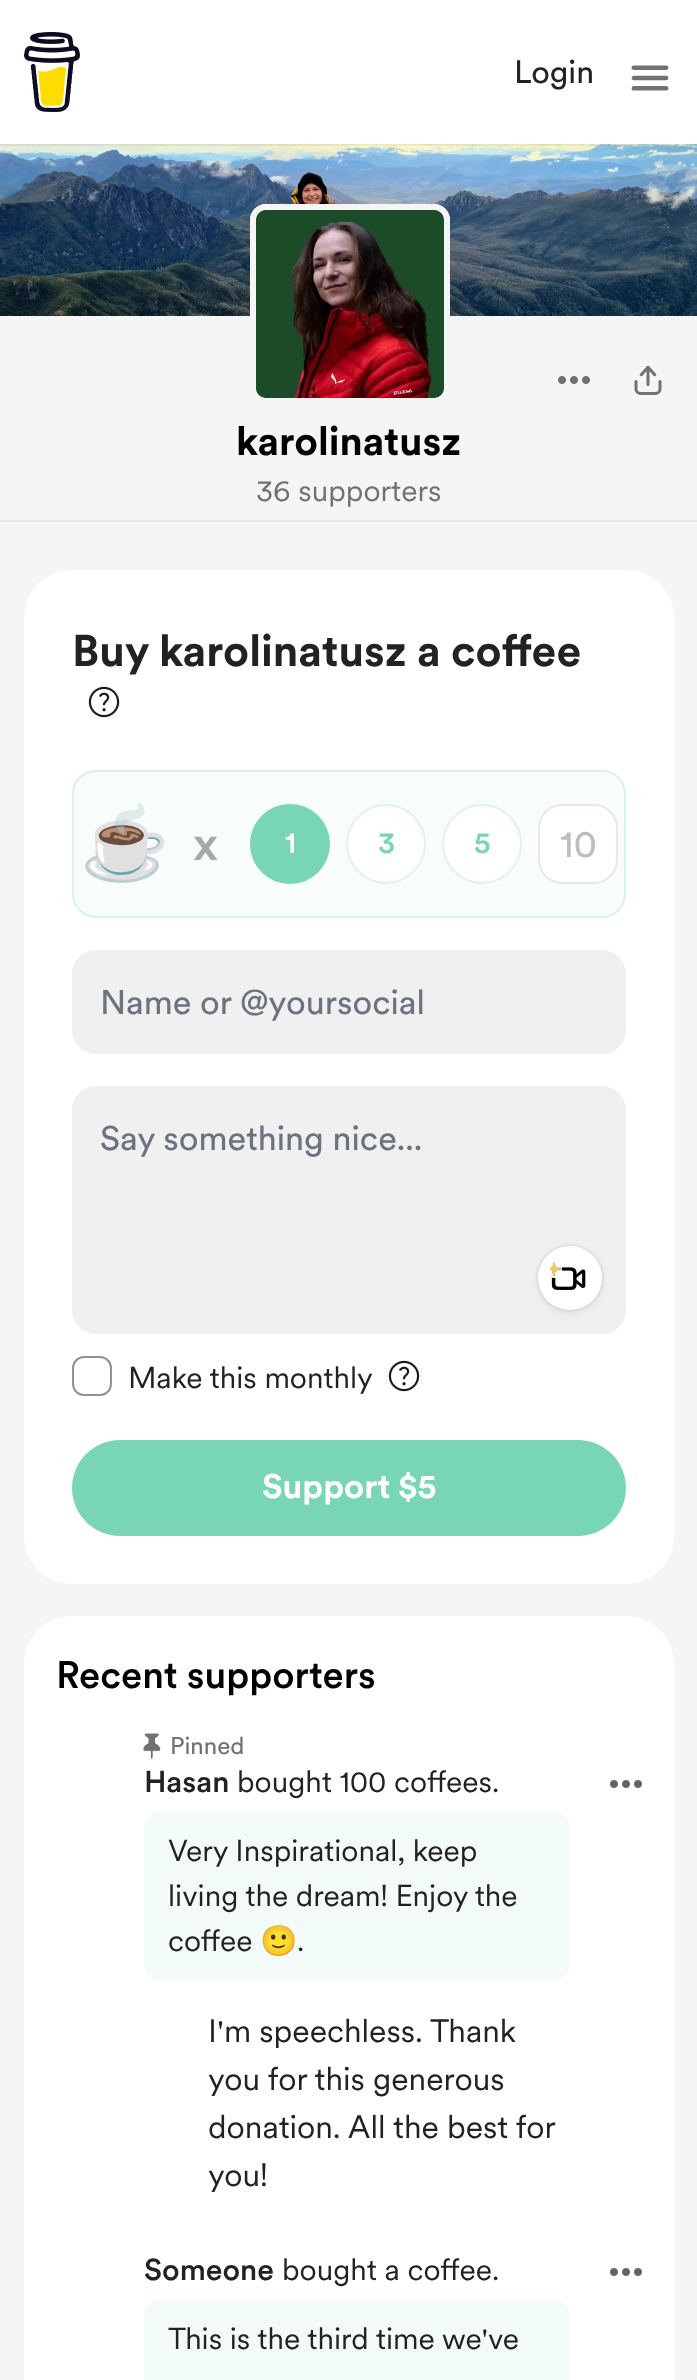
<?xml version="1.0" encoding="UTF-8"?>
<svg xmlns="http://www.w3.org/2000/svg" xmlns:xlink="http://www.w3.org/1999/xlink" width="697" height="2380">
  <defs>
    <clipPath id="clip1"><rect x="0" y="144" width="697" height="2" /></clipPath>
  </defs>
  <rect width="100%" height="100%" fill="#ffffff" />
  <image x="0" y="144" width="697" height="172" xlink:href="image3.png" />
  <g clip-path="url(#clip1)">
    <rect y="2" width="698" height="144" fill="#000000" fill-opacity="0.06" filter="blur(1px)" />
  </g>
  <image x="24" y="32" width="56" height="80" xlink:href="image1.png" />
  <image x="631" y="65" width="38" height="26" xlink:href="image2.png" />
  <rect y="316" width="697" height="2064" fill="#f5f5f5" />
  <image x="558" y="376" width="32" height="8" xlink:href="image4.png" />
  <image x="634" y="366" width="28" height="29" xlink:href="image5.png" />
  <image x="250" y="204" width="200" height="200" xlink:href="image6.png" />
  <rect x="253" y="207" width="194" height="194" rx="13" fill="none" stroke="#f5f5f5" stroke-width="6" />
  <image x="256" y="210" width="188" height="188" xlink:href="image7.png" />
  <rect y="520" width="697" height="2" fill="#e9e9e9" />
  <rect x="24" y="570" width="650" height="1014" rx="48" fill="#ffffff" />
  <image x="88" y="686" width="32" height="32" xlink:href="image8.png" />
  <rect x="72" y="770" width="554" height="148" rx="24" fill="#f8fdfb" />
  <rect x="73" y="771" width="552" height="146" rx="23" fill="none" stroke="#79d6b5" stroke-opacity="0.25" stroke-width="2" />
  <circle cx="290" cy="844" r="40" fill="#79d6b5" />
  <circle cx="290" cy="844" r="39" fill="none" stroke="#79d6b5" stroke-opacity="0.25" stroke-width="2" />
  <circle cx="386" cy="844" r="40" fill="#ffffff" />
  <circle cx="386" cy="844" r="39" fill="none" stroke="#79d6b5" stroke-opacity="0.25" stroke-width="2" />
  <circle cx="482" cy="844" r="40" fill="#ffffff" />
  <circle cx="482" cy="844" r="39" fill="none" stroke="#79d6b5" stroke-opacity="0.25" stroke-width="2" />
  <rect x="538" y="804" width="80" height="80" rx="24" fill="#ffffff" />
  <rect x="539" y="805" width="78" height="78" rx="23" fill="none" stroke="#222222" stroke-opacity="0.1" stroke-width="2" />
  <rect x="72" y="950" width="554" height="104" rx="24" fill="#f0f0f0" />
  <rect x="72" y="1086" width="554" height="248" rx="24" fill="#f0f0f0" />
  <rect x="538" y="1250" width="64" height="64" rx="32" fill="#000000" fill-opacity="0.05" filter="blur(5px)" />
  <rect x="538" y="1246" width="64" height="64" rx="32" fill="#000000" fill-opacity="0.15" filter="blur(2px)" />
  <circle cx="570" cy="1278" r="32" fill="#ffffff" />
  <image x="551" y="1267" width="35" height="23" xlink:href="image10.png" />
  <image x="550" y="1262" width="12" height="16" xlink:href="image9.png" />
  <rect x="73" y="1357" width="38" height="38" rx="11" fill="none" stroke="#919191" stroke-width="2" />
  <image x="388" y="1360" width="32" height="32" xlink:href="image8.png" />
  <rect x="72" y="1440" width="554" height="96" rx="48" fill="#79d6b5" />
  <rect x="24" y="1616" width="650" height="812" rx="48" fill="#ffffff" />
  <image x="143" y="1733" width="18" height="27" xlink:href="image11.png" />
  <rect x="144" y="1812" width="426" height="168" rx="16" fill="#f2fbf8" />
  <image x="610" y="1780" width="32" height="8" xlink:href="image12.png" />
  <rect x="144" y="2300" width="426" height="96" rx="16" fill="#f2fbf8" />
  <image x="610" y="2268" width="32" height="8" xlink:href="image12.png" />
  <text x="514" y="83" style="font-family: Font; font-size: 32px; fill: #222222">Login</text>
  <text x="236" y="455" style="font-family: Font; font-size: 40px; font-weight: bold; fill: #000000">karolinatusz</text>
  <text x="256" y="501" style="font-family: 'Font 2'; font-size: 30px; fill: #717171">36 supporters</text>
  <text x="72" y="666" style="font-family: Font; font-size: 44px; font-weight: bold; fill: #222222">Buy karolinatusz a coffee</text>
  <text x="80" y="868" style="font-family: Noto Color Emoji; font-size: 72px; fill: #000000">☕</text>
  <text x="193" y="860" style="font-family: Font; font-size: 48px; font-weight: 500; fill: #a7a9a8">x</text>
  <text x="285" y="853" style="font-family: Font; font-size: 30px; font-weight: 500; fill: #ffffff">1</text>
  <text x="378" y="853" style="font-family: Font; font-size: 30px; font-weight: 500; fill: #79d6b5">3</text>
  <text x="474" y="853" style="font-family: Font; font-size: 30px; font-weight: 500; fill: #79d6b5">5</text>
  <text x="560" y="857" style="font-family: Font; font-size: 38px; fill: #bdbdbd">10</text>
  <text x="100" y="1014" style="font-family: Font; font-size: 34px; fill: #6b7280">Name or @yoursocial</text>
  <text x="100" y="1150" style="font-family: Font; font-size: 34px; fill: #6b7280">Say something nice...</text>
  <text x="128" y="1388" style="font-family: 'Font 2'; font-size: 30px; fill: #222222">Make this monthly</text>
  <text x="262" y="1498" style="font-family: Font; font-size: 34px; font-weight: bold; fill: #ffffff">Support $5</text>
  <text x="56" y="1688" style="font-family: Font; font-size: 38px; font-weight: 500; fill: #000000">Recent supporters</text>
  <text x="170" y="1754" style="font-family: Font; font-size: 24px; fill: #717171">Pinned</text>
  <text x="144" y="1792" style="font-family: Font; font-size: 30px; font-weight: 500; fill: #222222">Hasan</text>
  <text x="237" y="1792" style="font-family: 'Font 2'; font-size: 30px; fill: #222222">bought 100 coffees.</text>
  <text x="168" y="1861" style="font-family: 'Font 2'; font-size: 30px; fill: #222222">Very Inspirational, keep</text>
  <text x="168" y="1906" style="font-family: 'Font 2'; font-size: 30px; fill: #222222">living the dream! Enjoy the</text>
  <text x="168" y="1951" style="font-family: 'Font 2'; font-size: 30px; fill: #222222">coffee</text>
  <text x="260" y="1951" style="font-family: Noto Color Emoji; font-size: 30px; fill: #222222">🙂</text>
  <text x="297" y="1951" style="font-family: 'Font 2'; font-size: 30px; fill: #222222">.</text>
  <text x="208" y="2042" style="font-family: 'Font 2'; font-size: 32px; fill: #222222">I'm speechless. Thank</text>
  <text x="208" y="2090" style="font-family: 'Font 2'; font-size: 32px; fill: #222222">you for this generous</text>
  <text x="208" y="2138" style="font-family: 'Font 2'; font-size: 32px; fill: #222222">donation. All the best for</text>
  <text x="208" y="2186" style="font-family: 'Font 2'; font-size: 32px; fill: #222222">you!</text>
  <text x="144" y="2280" style="font-family: Font; font-size: 30px; font-weight: 500; fill: #222222">Someone</text>
  <text x="282" y="2280" style="font-family: 'Font 2'; font-size: 30px; fill: #222222">bought a coffee.</text>
  <text x="168" y="2349" style="font-family: 'Font 2'; font-size: 30px; fill: #222222">This is the third time we've</text>
</svg>
